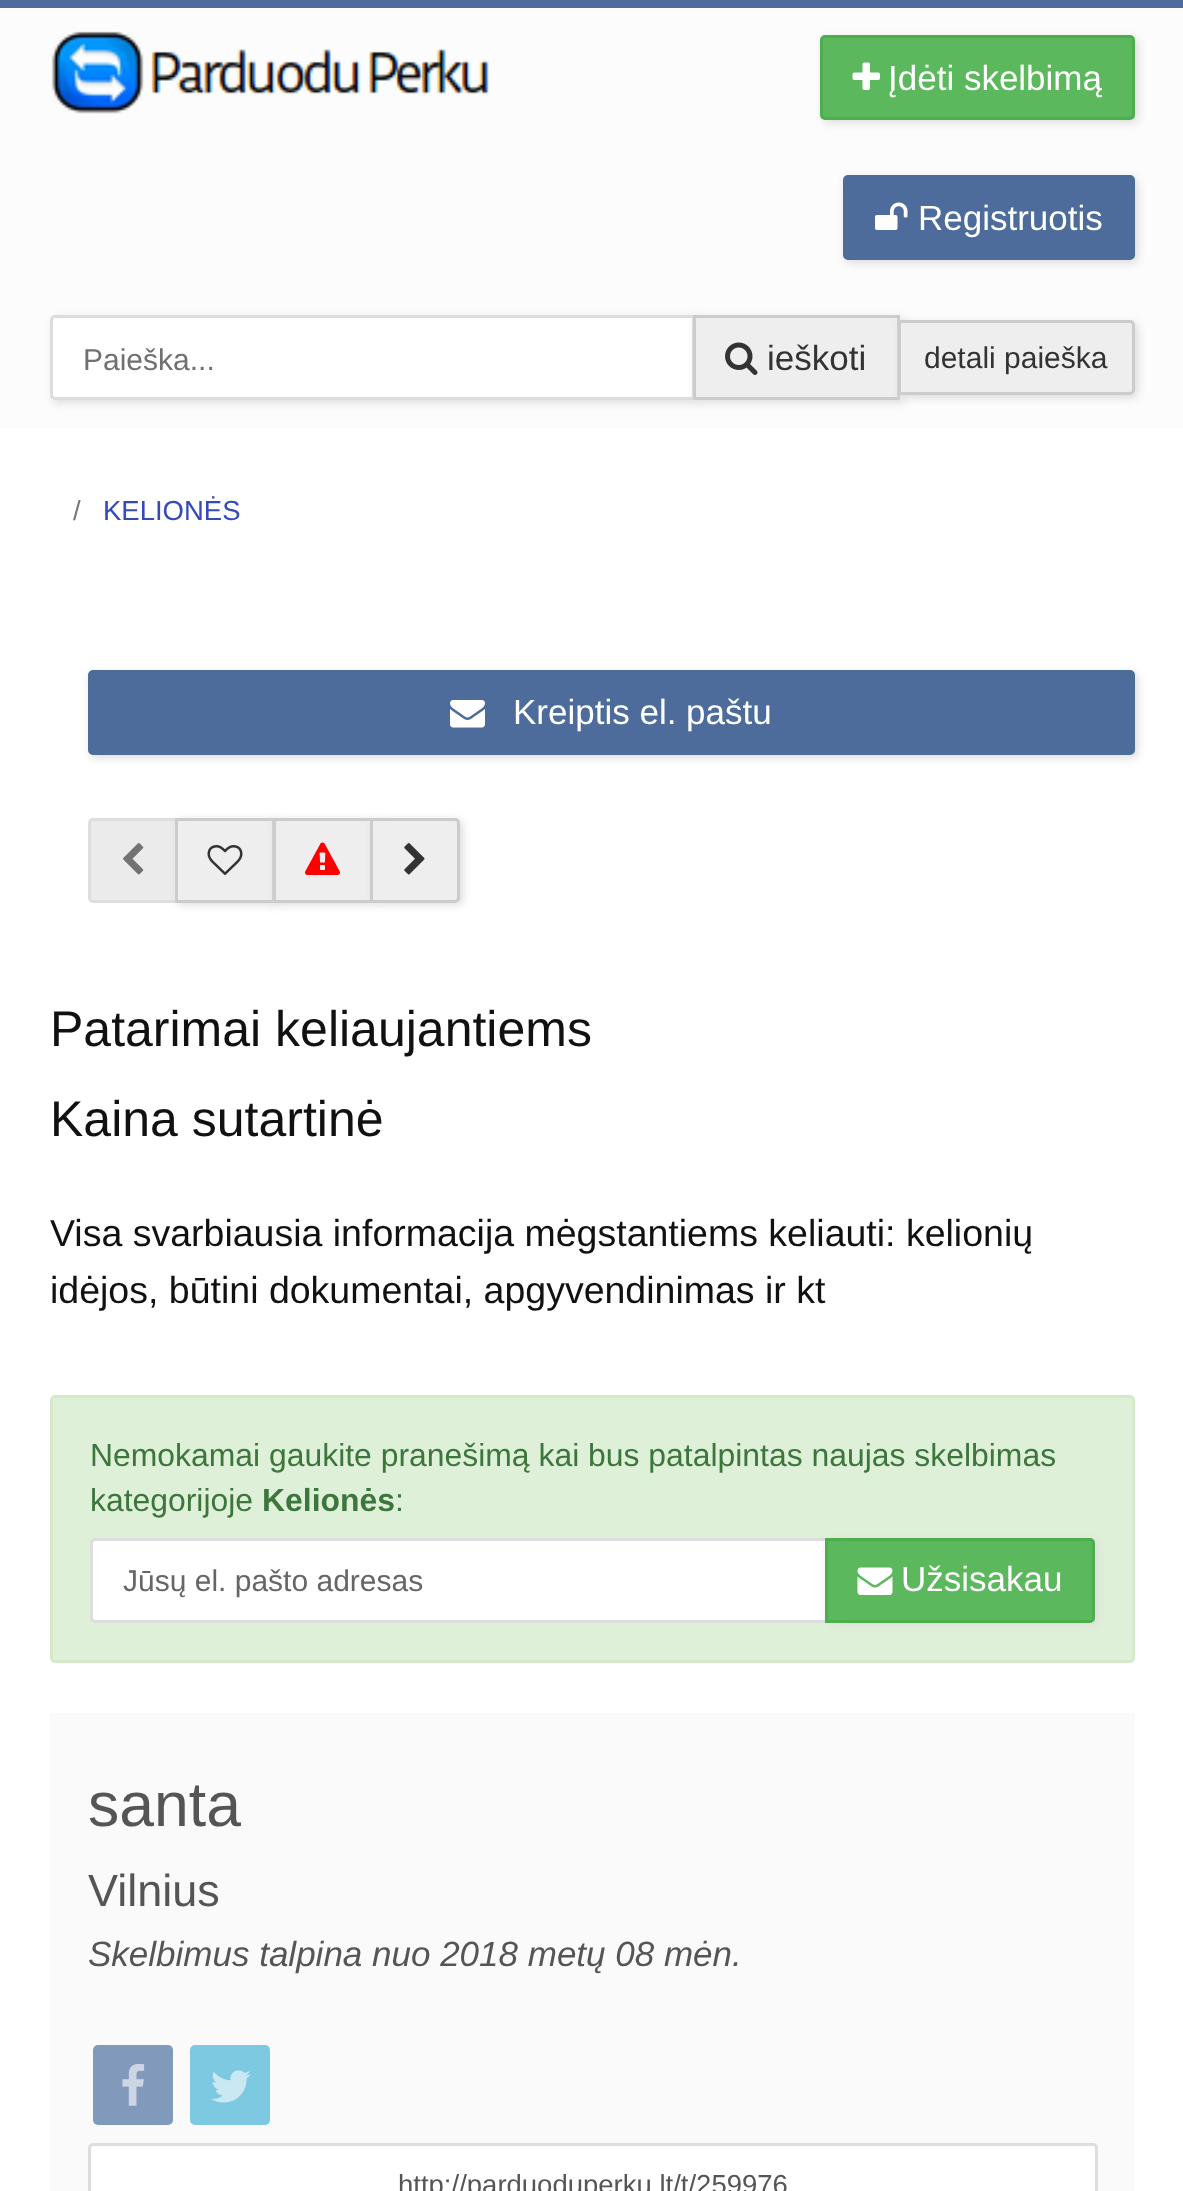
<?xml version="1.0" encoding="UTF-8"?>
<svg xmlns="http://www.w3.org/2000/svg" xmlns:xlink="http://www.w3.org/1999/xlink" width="1183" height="2191">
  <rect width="100%" height="100%" fill="#4d6c9b" />
  <rect y="8" width="1183" height="420" fill="#fcfcfc" />
  <image x="51" y="31" width="438" height="83" xlink:href="image1.png" />
  <rect x="823" y="38" width="315" height="85" rx="5" fill="#dddddd" filter="blur(4px)" />
  <rect x="821.5" y="36.5" width="312" height="82" rx="3.5" fill="#5cb85c" stroke="#4cae4c" stroke-width="3" />
  <image x="852" y="62" width="28" height="28" xlink:href="image2.png" />
  <rect x="845" y="178" width="293" height="85" rx="5" fill="#dddddd" filter="blur(4px)" />
  <rect x="844.5" y="176.5" width="289" height="82" rx="3.5" fill="#4d6c9b" stroke="#4d6c9a" stroke-width="3" />
  <image x="875" y="202" width="33" height="28" xlink:href="image3.png" />
  <rect x="53" y="318" width="645" height="85" rx="5" fill="#dddddd" filter="blur(4px)" />
  <path d="M 55 316.5 h 638.5 v 82 h -638.5 c -2 0 -3.5 -1.5 -3.5 -3.5 v -75 c 0 -2 1.5 -3.5 3.5 -3.5 z" fill="#ffffff" stroke="#dddddd" stroke-width="3" />
  <rect x="695" y="318" width="208" height="85" fill="#dddddd" filter="blur(4px)" />
  <rect x="694.5" y="316.5" width="204" height="82" fill="#eeeeee" stroke="#cccccc" stroke-width="3" />
  <image x="725" y="342" width="33" height="33" xlink:href="image4.png" />
  <rect x="900" y="323" width="238" height="75" rx="5" fill="#dddddd" filter="blur(4px)" />
  <path d="M 899.5 321.5 h 230.5 c 2 0 3.5 1.5 3.5 3.5 v 65 c 0 2 -1.5 3.5 -3.5 3.5 h -230.5 z" fill="#eeeeee" stroke="#cccccc" stroke-width="3" />
  <rect y="428" width="1183" height="1763" fill="#ffffff" />
  <rect x="90" y="673" width="1048" height="85" rx="5" fill="#dddddd" filter="blur(4px)" />
  <rect x="89.5" y="671.5" width="1044" height="82" rx="3.5" fill="#4d6c9b" stroke="#4d6c9a" stroke-width="3" />
  <image x="450" y="700" width="35" height="28" xlink:href="image5.png" />
  <path d="M 93 819.5 h 83.5 v 82 h -83.5 c -2 0 -3.5 -1.5 -3.5 -3.5 v -75 c 0 -2 1.5 -3.5 3.5 -3.5 z" fill="#ebebeb" stroke="#dedede" stroke-width="3" />
  <image x="123" y="843" width="21" height="32" xlink:href="image6.png" />
  <rect x="178" y="820" width="100" height="85" fill="#dddddd" filter="blur(4px)" />
  <rect x="176.5" y="819.5" width="97" height="82" fill="#eeeeee" stroke="#cccccc" stroke-width="3" />
  <image x="207" y="845" width="36" height="30" xlink:href="image7.png" />
  <rect x="275" y="820" width="100" height="85" fill="#dddddd" filter="blur(4px)" />
  <rect x="274.5" y="819.5" width="97" height="82" fill="#eeeeee" stroke="#cccccc" stroke-width="3" />
  <image x="305" y="842" width="35" height="33" xlink:href="image8.png" />
  <rect x="373" y="820" width="90" height="85" rx="5" fill="#dddddd" filter="blur(4px)" />
  <path d="M 371.5 819.5 h 83.5 c 2 0 3.5 1.5 3.5 3.5 v 75 c 0 2 -1.5 3.5 -3.5 3.5 h -83.5 z" fill="#eeeeee" stroke="#cccccc" stroke-width="3" />
  <image x="404" y="843" width="21" height="32" xlink:href="image9.png" />
  <rect x="51.5" y="1396.5" width="1082" height="265" rx="3.5" fill="#dff0d8" stroke="#d6e9c6" stroke-width="3" />
  <path d="M 95 1539.5 h 731.5 v 82 h -731.5 c -2 0 -3.5 -1.5 -3.5 -3.5 v -75 c 0 -2 1.5 -3.5 3.5 -3.5 z" fill="#ffffff" stroke="#dddddd" stroke-width="3" />
  <rect x="828" y="1540" width="270" height="85" rx="5" fill="#dddddd" filter="blur(4px)" />
  <path d="M 826.5 1539.5 h 263.5 c 2 0 3.5 1.5 3.5 3.5 v 75 c 0 2 -1.5 3.5 -3.5 3.5 h -263.5 z" fill="#5cb85c" stroke="#4cae4c" stroke-width="3" />
  <image x="857" y="1567" width="36" height="28" xlink:href="image10.png" />
  <rect x="50" y="1713" width="1085" height="478" fill="#fafafa" />
  <rect x="93" y="2045" width="80" height="80" rx="5" fill="#8199bb" />
  <image x="122" y="2063" width="23" height="43" xlink:href="image11.png" />
  <rect x="190" y="2045" width="80" height="80" rx="5" fill="#7ec9e2" />
  <image x="211" y="2070" width="40" height="33" xlink:href="image12.png" />
  <rect x="89.5" y="2144.5" width="1007" height="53" rx="3.5" fill="#ffffff" stroke="#dddddd" stroke-width="3" />
  <text x="888" y="90" style="font-family: Liberation Sans; font-size: 35px; fill: #ffffff">Įdėti skelbimą</text>
  <text x="918" y="230" style="font-family: Liberation Sans; font-size: 35px; fill: #ffffff">Registruotis</text>
  <text x="83" y="370" style="font-family: Liberation Sans; font-size: 30px; fill: #707070">Paieška...</text>
  <text x="767" y="370" style="font-family: Liberation Sans; font-size: 35px; fill: #333333">ieškoti</text>
  <text x="924" y="368" style="font-family: Liberation Sans; font-size: 30px; fill: #333333">detali paieška</text>
  <text x="73" y="520" style="font-family: Liberation Sans; font-size: 27.5px; fill: #777777">/</text>
  <text x="103" y="520" style="font-family: Liberation Sans; font-size: 27.5px; fill: #334ab7">KELIONĖS</text>
  <text x="513" y="724" style="font-family: Liberation Sans; font-size: 35px; fill: #ffffff">Kreiptis el. paštu</text>
  <text x="50" y="1046" style="font-family: Liberation Sans; font-size: 50px; fill: #111111">Patarimai keliaujantiems</text>
  <text x="50" y="1136" style="font-family: Liberation Sans; font-size: 50px; fill: #111111">Kaina sutartinė</text>
  <text x="50" y="1246" style="font-family: Liberation Sans; font-size: 37.5px; fill: #111111">Visa svarbiausia informacija mėgstantiems keliauti: kelionių</text>
  <text x="50" y="1303" style="font-family: Liberation Sans; font-size: 37.5px; fill: #111111">idėjos, būtini dokumentai, apgyvendinimas ir kt</text>
  <text x="90" y="1466" style="font-family: Liberation Sans; font-size: 31.9px; fill: #3c763d">Nemokamai gaukite pranešimą kai bus patalpintas naujas skelbimas</text>
  <text x="90" y="1511" style="font-family: Liberation Sans; font-size: 31.9px; fill: #3c763d">kategorijoje</text>
  <text x="262" y="1511" style="font-family: Liberation Sans; font-size: 31.9px; font-weight: bold; fill: #3c763d">Kelionės</text>
  <text x="395" y="1511" style="font-family: Liberation Sans; font-size: 31.9px; fill: #3c763d">:</text>
  <text x="123" y="1591" style="font-family: Liberation Sans; font-size: 30px; fill: #666666">Jūsų el. pašto adresas</text>
  <text x="901" y="1591" style="font-family: Liberation Sans; font-size: 35px; fill: #ffffff">Užsisakau</text>
  <text x="88" y="1826" style="font-family: Liberation Sans; font-size: 62.5px; fill: #555555">santa</text>
  <text x="88" y="1906" style="font-family: Liberation Sans; font-size: 45px; fill: #555555">Vilnius</text>
  <text x="88" y="1966" style="font-family: Liberation Sans; font-size: 35px; font-style: italic; fill: #555555">Skelbimus talpina nuo 2018 metų 08 mėn.</text>
  <text x="398" y="2194" style="font-family: Liberation Sans; font-size: 27.5px; fill: #555555">http://parduoduperku.lt/t/259976</text>
</svg>
